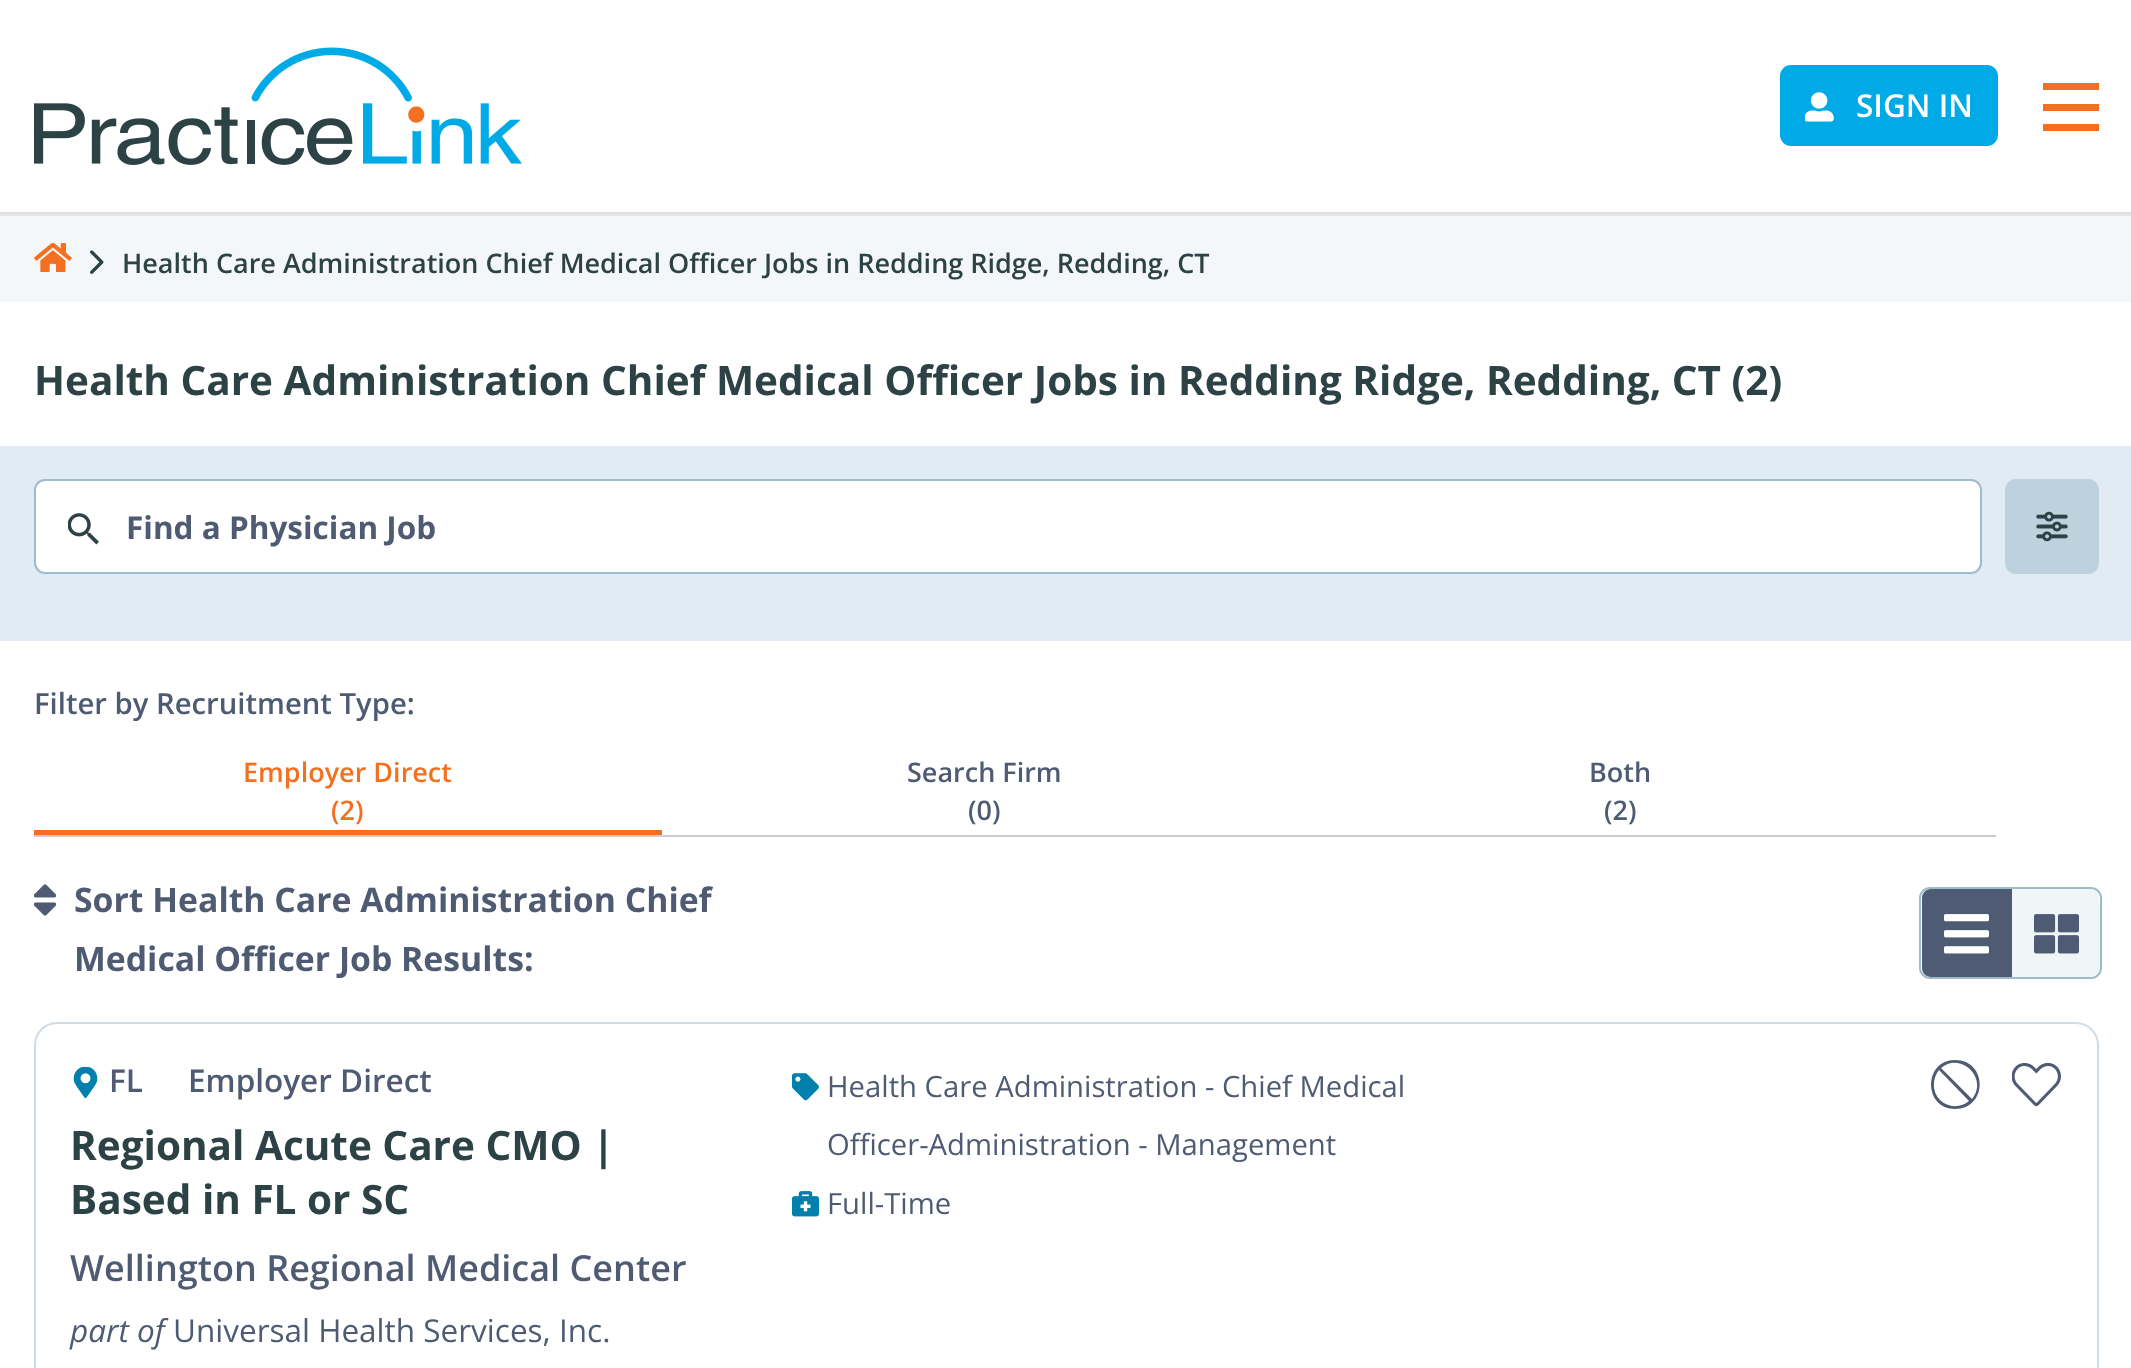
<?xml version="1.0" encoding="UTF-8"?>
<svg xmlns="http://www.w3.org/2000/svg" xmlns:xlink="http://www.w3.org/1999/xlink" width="2131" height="1368">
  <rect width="100%" height="100%" fill="#ffffff" />
  <rect y="212" width="2131" height="2" fill="#dfdfdf" />
  <image x="34" y="47" width="488" height="118" xlink:href="image1.png" />
  <rect x="1781" y="66" width="216" height="79" rx="10" fill="#00aae7" stroke="#00aae7" stroke-width="2" />
  <image x="1805" y="92" width="29" height="30" xlink:href="image2.png" />
  <rect x="2043" y="83" width="56" height="7" fill="#f37021" />
  <rect x="2043" y="104" width="56" height="7" fill="#f37021" />
  <rect x="2043" y="124" width="56" height="7" fill="#f37021" />
  <rect y="216" width="2131" height="86" fill="#f4f7f9" />
  <rect y="214" width="2131" height="2" fill="#e7e7e7" />
  <image x="34" y="243" width="38" height="29" xlink:href="image3.png" />
  <image x="90" y="250" width="14" height="24" xlink:href="image4.png" />
  <rect y="446" width="2131" height="195" fill="#e1ebf4" />
  <rect x="35" y="480" width="1946" height="93" rx="10" fill="#ffffff" stroke="#9dbccc" stroke-width="2" />
  <image x="68" y="513" width="31" height="32" xlink:href="image5.png" />
  <rect x="2005" y="479" width="94" height="95" rx="11" fill="#bdd2dd" />
  <image x="2036" y="511" width="32" height="31" xlink:href="image6.png" />
  <rect x="34" y="835" width="1962" height="2" fill="#cccccc" />
  <rect x="34" y="830" width="628" height="5" fill="#f37021" />
  <image x="34" y="884" width="22" height="32" xlink:href="image7.png" />
  <rect x="1920" y="888" width="181" height="90" rx="10" fill="none" stroke="#9cbccd" stroke-width="2" />
  <path d="M 1931 889 h 81 v 88 h -81 c -5 0 -9 -4 -9 -9 v -70 c 0 -5 4 -9 9 -9 z" fill="#4e5b73" />
  <image x="1944" y="914" width="45" height="40" xlink:href="image8.png" />
  <path d="M 2012 889 h 78 c 5 0 9 4 9 9 v 70 c 0 5 -4 9 -9 9 h -78 z" fill="#f0f5f8" />
  <image x="2034" y="914" width="45" height="40" xlink:href="image9.png" />
  <rect x="35" y="1023" width="2063" height="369" rx="22" fill="none" stroke="#cddde6" stroke-width="2" />
  <image x="73" y="1067" width="25" height="31" xlink:href="image10.png" />
  <image x="792" y="1073" width="27" height="28" xlink:href="image11.png" />
  <image x="792" y="1191" width="27" height="26" xlink:href="image12.png" />
  <path d="M 1955 1060 c -32 0 -32 49 0 49 c 33 0 33 -49 0 -49 z m -15 40 c -8 -8 -8 -21 -1 -30 l 30 31 c -8 7 -21 7 -29 -1 z m 32 -1 l -31 -31 c 20 -17 48 11 31 31 z" fill="#4e5b73" />
  <image x="2012" y="1062" width="49" height="45" xlink:href="image13.png" />
  <text x="1856" y="117" style="font-family: Open Sans; font-size: 31.5px; font-weight: 600; fill: #ffffff">SIGN IN</text>
  <text x="122" y="273" style="font-family: Open Sans; font-size: 27px; font-weight: 600; fill: #2d4245">Health Care Administration Chief Medical Officer Jobs in Redding Ridge, Redding, CT</text>
  <text x="34" y="395" style="font-family: Open Sans; font-size: 40.5px; font-weight: bold; fill: #2d4245">Health Care Administration Chief Medical Officer Jobs in Redding Ridge, Redding, CT (2)</text>
  <text x="126" y="539" style="font-family: Open Sans; font-size: 31.5px; font-weight: bold; fill: #4e5b73">Find a Physician Job</text>
  <text x="34" y="714" style="font-family: Open Sans; font-size: 29.25px; font-weight: 600; fill: #4e5b73">Filter by Recruitment Type:</text>
  <text x="243" y="782" style="font-family: Open Sans; font-size: 27px; font-weight: 600; fill: #f37021">Employer Direct</text>
  <text x="331" y="820" style="font-family: Open Sans; font-size: 27px; font-weight: 600; fill: #f37021">(2)</text>
  <text x="907" y="782" style="font-family: Open Sans; font-size: 27px; font-weight: 600; fill: #4e5b73">Search Firm</text>
  <text x="968" y="820" style="font-family: Open Sans; font-size: 27px; font-weight: 600; fill: #4e5b73">(0)</text>
  <text x="1589" y="782" style="font-family: Open Sans; font-size: 27px; font-weight: 600; fill: #4e5b73">Both</text>
  <text x="1604" y="820" style="font-family: Open Sans; font-size: 27px; font-weight: 600; fill: #4e5b73">(2)</text>
  <text x="74" y="912" style="font-family: Open Sans; font-size: 33.75px; font-weight: bold; fill: #4e5b73">Sort Health Care Administration Chief</text>
  <text x="74" y="971" style="font-family: Open Sans; font-size: 33.75px; font-weight: bold; fill: #4e5b73">Medical Officer Job Results:</text>
  <text x="109" y="1092" style="font-family: Open Sans; font-size: 31.5px; font-weight: 600; fill: #4e5b73">FL</text>
  <text x="188" y="1092" style="font-family: Open Sans; font-size: 31.5px; font-weight: 600; fill: #4e5b73">Employer Direct</text>
  <text x="70" y="1160" style="font-family: Open Sans; font-size: 40.5px; font-weight: bold; fill: #2d4245">Regional Acute Care CMO |</text>
  <text x="70" y="1214" style="font-family: Open Sans; font-size: 40.5px; font-weight: bold; fill: #2d4245">Based in FL or SC</text>
  <text x="70" y="1281" style="font-family: Open Sans; font-size: 36px; font-weight: 600; fill: #4e5b73">Wellington Regional Medical Center</text>
  <text x="70" y="1342" style="font-family: Open Sans; font-size: 31.5px; font-style: italic; fill: #4e5b73">part of</text>
  <text x="173" y="1342" style="font-family: Open Sans; font-size: 31.5px; fill: #4e5b73">Universal Health Services, Inc.</text>
  <text x="827" y="1097" style="font-family: Open Sans; font-size: 29.25px; fill: #4e5b73">Health Care Administration - Chief Medical</text>
  <text x="827" y="1155" style="font-family: Open Sans; font-size: 29.25px; fill: #4e5b73">Officer-Administration - Management</text>
  <text x="827" y="1214" style="font-family: Open Sans; font-size: 29.25px; fill: #4e5b73">Full-Time</text>
</svg>
